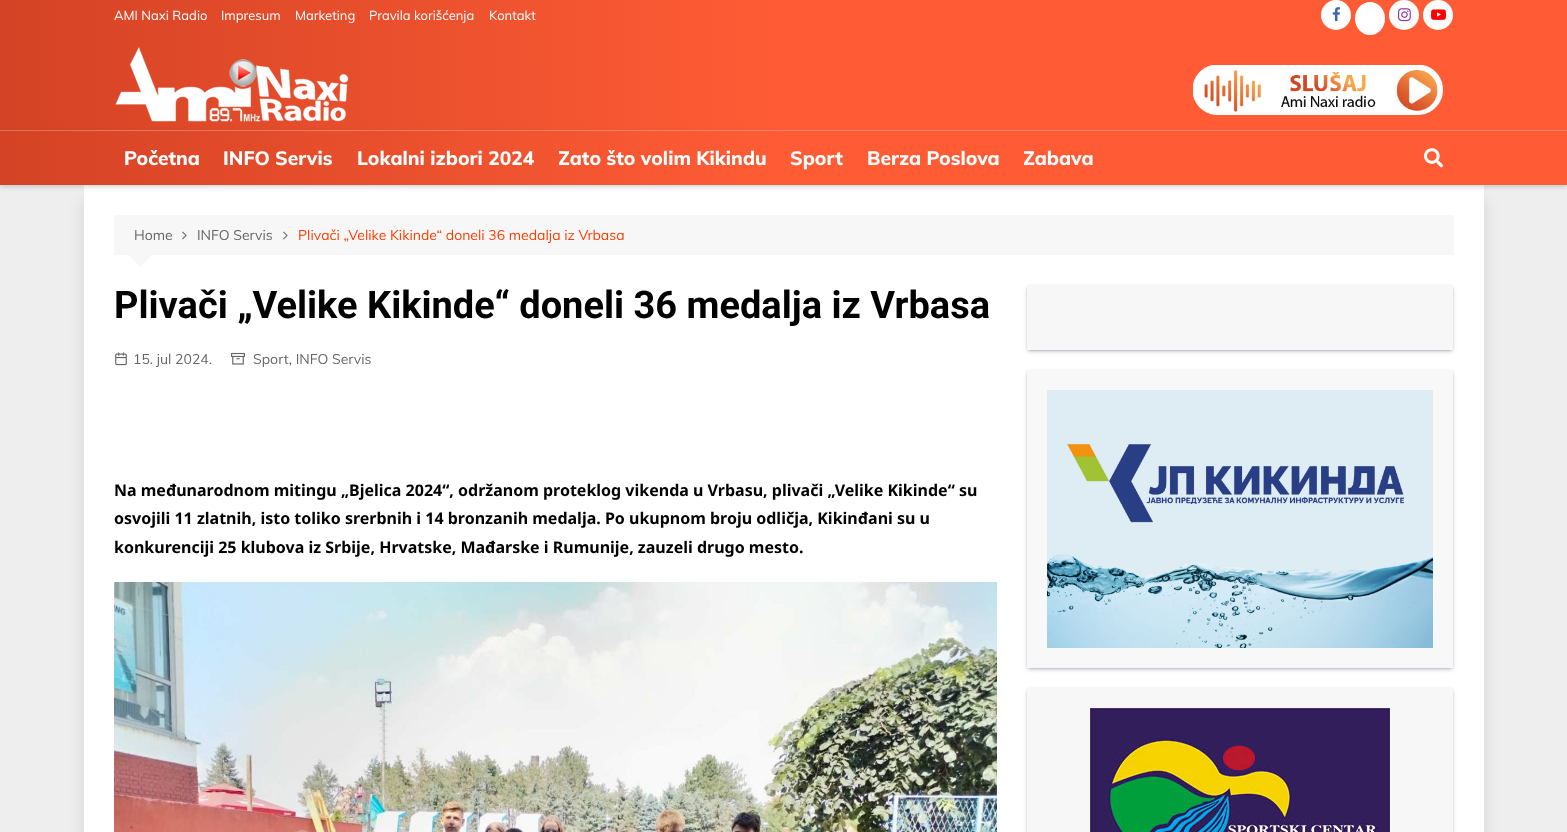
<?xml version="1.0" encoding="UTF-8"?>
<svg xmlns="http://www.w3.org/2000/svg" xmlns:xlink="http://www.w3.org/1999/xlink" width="1567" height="832">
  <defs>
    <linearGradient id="g1" gradientUnits="userSpaceOnUse" x1="0" y1="93" x2="1567" y2="92"><stop offset="0" stop-color="#d44325" /><stop offset="0.5" stop-color="#ff5c35" /><stop offset="1" stop-color="#ff5c35" /></linearGradient>
    <linearGradient id="g2" gradientUnits="userSpaceOnUse" x1="0" y1="93" x2="1567" y2="92"><stop offset="0" stop-color="#df725c" /><stop offset="0.5" stop-color="#ff8568" /><stop offset="1" stop-color="#ff8568" /></linearGradient>
    <clipPath id="clip1"><path d="M 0 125 h 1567 v 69 h -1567 z m 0 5 h 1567 v 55 h -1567 z" clip-rule="evenodd" /></clipPath>
  </defs>
  <rect width="100%" height="100%" fill="#ffffff" />
  <rect width="1567" height="185" fill="url(#g1)" />
  <rect y="130" width="1567" height="1" fill="url(#g2)" />
  <circle cx="1336" cy="15" r="15" fill="#ffffff" />
  <image x="1332" y="7" width="9" height="15" xlink:href="image1.png" />
  <ellipse cx="1370" cy="18.5" rx="15" ry="16.5" fill="#ffffff" />
  <circle cx="1404" cy="15" r="15" fill="#ffffff" />
  <image x="1398" y="8" width="13" height="14" xlink:href="image2.png" />
  <circle cx="1438" cy="15" r="15" fill="#ffffff" />
  <image x="1431" y="9" width="15" height="11" xlink:href="image3.png" />
  <image x="115" y="46" width="234" height="76" xlink:href="image4.png" />
  <image x="1193" y="65" width="250" height="50" xlink:href="image5.png" />
  <rect y="185" width="1567" height="647" fill="#eeeeee" />
  <rect x="84" y="200" width="1400" height="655" fill="#000000" fill-opacity="0.1" filter="blur(7.5px)" />
  <rect x="84" y="185" width="1400" height="647" fill="#ffffff" />
  <g clip-path="url(#clip1)">
    <rect y="132" width="1567" height="55" fill="#213343" fill-opacity="0.2" filter="blur(2px)" />
  </g>
  <image x="1424" y="148" width="20" height="20" xlink:href="image6.png" />
  <rect x="114" y="215" width="1340" height="40" fill="#f7f7f7" />
  <image x="182" y="231" width="5" height="9" xlink:href="image7.png" />
  <image x="283" y="231" width="5" height="9" xlink:href="image7.png" />
  <path d="M 128.5 254.5 h 24 l -12 13 z" fill="#f7f7f7" />
  <image x="115" y="352" width="12" height="14" xlink:href="image8.png" />
  <image x="231" y="352" width="14" height="13" xlink:href="image9.png" />
  <image x="114" y="582" width="883" height="250" xlink:href="image10.png" />
  <rect x="1028" y="287" width="424" height="63" fill="#000000" fill-opacity="0.3" filter="blur(1.5px)" />
  <rect x="1028" y="288" width="424" height="63" fill="#32325d" fill-opacity="0.25" filter="blur(2.5px)" />
  <rect x="1027" y="285" width="426" height="65" fill="#f7f7f7" />
  <rect x="1028" y="372" width="424" height="296" fill="#000000" fill-opacity="0.3" filter="blur(1.5px)" />
  <rect x="1028" y="373" width="424" height="296" fill="#32325d" fill-opacity="0.25" filter="blur(2.5px)" />
  <rect x="1027" y="370" width="426" height="298" fill="#f8f8f8" />
  <image x="1047" y="390" width="386" height="258" xlink:href="image11.png" />
  <rect x="1028" y="690" width="424" height="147" fill="#000000" fill-opacity="0.3" filter="blur(1.5px)" />
  <rect x="1028" y="691" width="424" height="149" fill="#32325d" fill-opacity="0.25" filter="blur(2.5px)" />
  <rect x="1027" y="688" width="426" height="144" fill="#f7f7f7" />
  <image x="1090" y="708" width="300" height="124" xlink:href="image12.png" />
  <text x="114" y="20" style="font-family: Muli; font-size: 13px; fill: #ffffff">AMI Naxi Radio</text>
  <text x="221" y="20" style="font-family: Muli; font-size: 13px; fill: #ffffff">Impresum</text>
  <text x="295" y="20" style="font-family: Muli; font-size: 13px; fill: #ffffff">Marketing</text>
  <text x="369" y="20" style="font-family: Muli; font-size: 13px; fill: #ffffff">Pravila korišćenja</text>
  <text x="489" y="20" style="font-family: Muli; font-size: 13px; fill: #ffffff">Kontakt</text>
  <text x="124" y="165" style="font-family: Muli; font-size: 19.25px; font-weight: 800; fill: #ffffff">Početna</text>
  <text x="223" y="165" style="font-family: Muli; font-size: 19.25px; font-weight: 800; fill: #ffffff">INFO Servis</text>
  <text x="357" y="165" style="font-family: Muli; font-size: 19.25px; font-weight: 800; fill: #ffffff">Lokalni izbori 2024</text>
  <text x="558" y="165" style="font-family: Muli; font-size: 19.25px; font-weight: 800; fill: #ffffff">Zato što volim Kikindu</text>
  <text x="790" y="165" style="font-family: Muli; font-size: 19.25px; font-weight: 800; fill: #ffffff">Sport</text>
  <text x="867" y="165" style="font-family: Muli; font-size: 19.25px; font-weight: 800; fill: #ffffff">Berza Poslova</text>
  <text x="1023" y="165" style="font-family: Muli; font-size: 19.25px; font-weight: 800; fill: #ffffff">Zabava</text>
  <text x="134" y="240" style="font-family: Muli; font-size: 14px; fill: #666666">Home</text>
  <text x="197" y="240" style="font-family: Muli; font-size: 14px; fill: #666666">INFO Servis</text>
  <text x="298" y="240" style="font-family: Muli; font-size: 14px; fill: #ff3d00">Plivači „Velike Kikinde“ doneli 36 medalja iz Vrbasa</text>
  <text x="114" y="318" style="font-family: Roboto; font-size: 38px; font-weight: bold; fill: #010101">Plivači „Velike Kikinde“ doneli 36 medalja iz Vrbasa</text>
  <text x="133" y="364" style="font-family: Muli; font-size: 14px; fill: #666666">15. jul 2024.</text>
  <text x="253" y="364" style="font-family: Muli; font-size: 14px; fill: #666666">Sport, INFO Servis</text>
  <text x="114" y="496" style="font-family: Noto Sans; font-size: 16px; font-weight: bold; fill: #010101">Na međunarodnom mitingu „Bjelica 2024“, održanom proteklog vikenda u Vrbasu, plivači „Velike Kikinde“ su</text>
  <text x="114" y="524" style="font-family: Noto Sans; font-size: 16px; font-weight: bold; fill: #010101">osvojili 11 zlatnih, isto toliko srerbnih i 14 bronzanih medalja. Po ukupnom broju odličja, Kikinđani su u</text>
  <text x="114" y="553" style="font-family: Noto Sans; font-size: 16px; font-weight: bold; fill: #010101">konkurenciji 25 klubova iz Srbije, Hrvatske, Mađarske i Rumunije, zauzeli drugo mesto.</text>
</svg>
